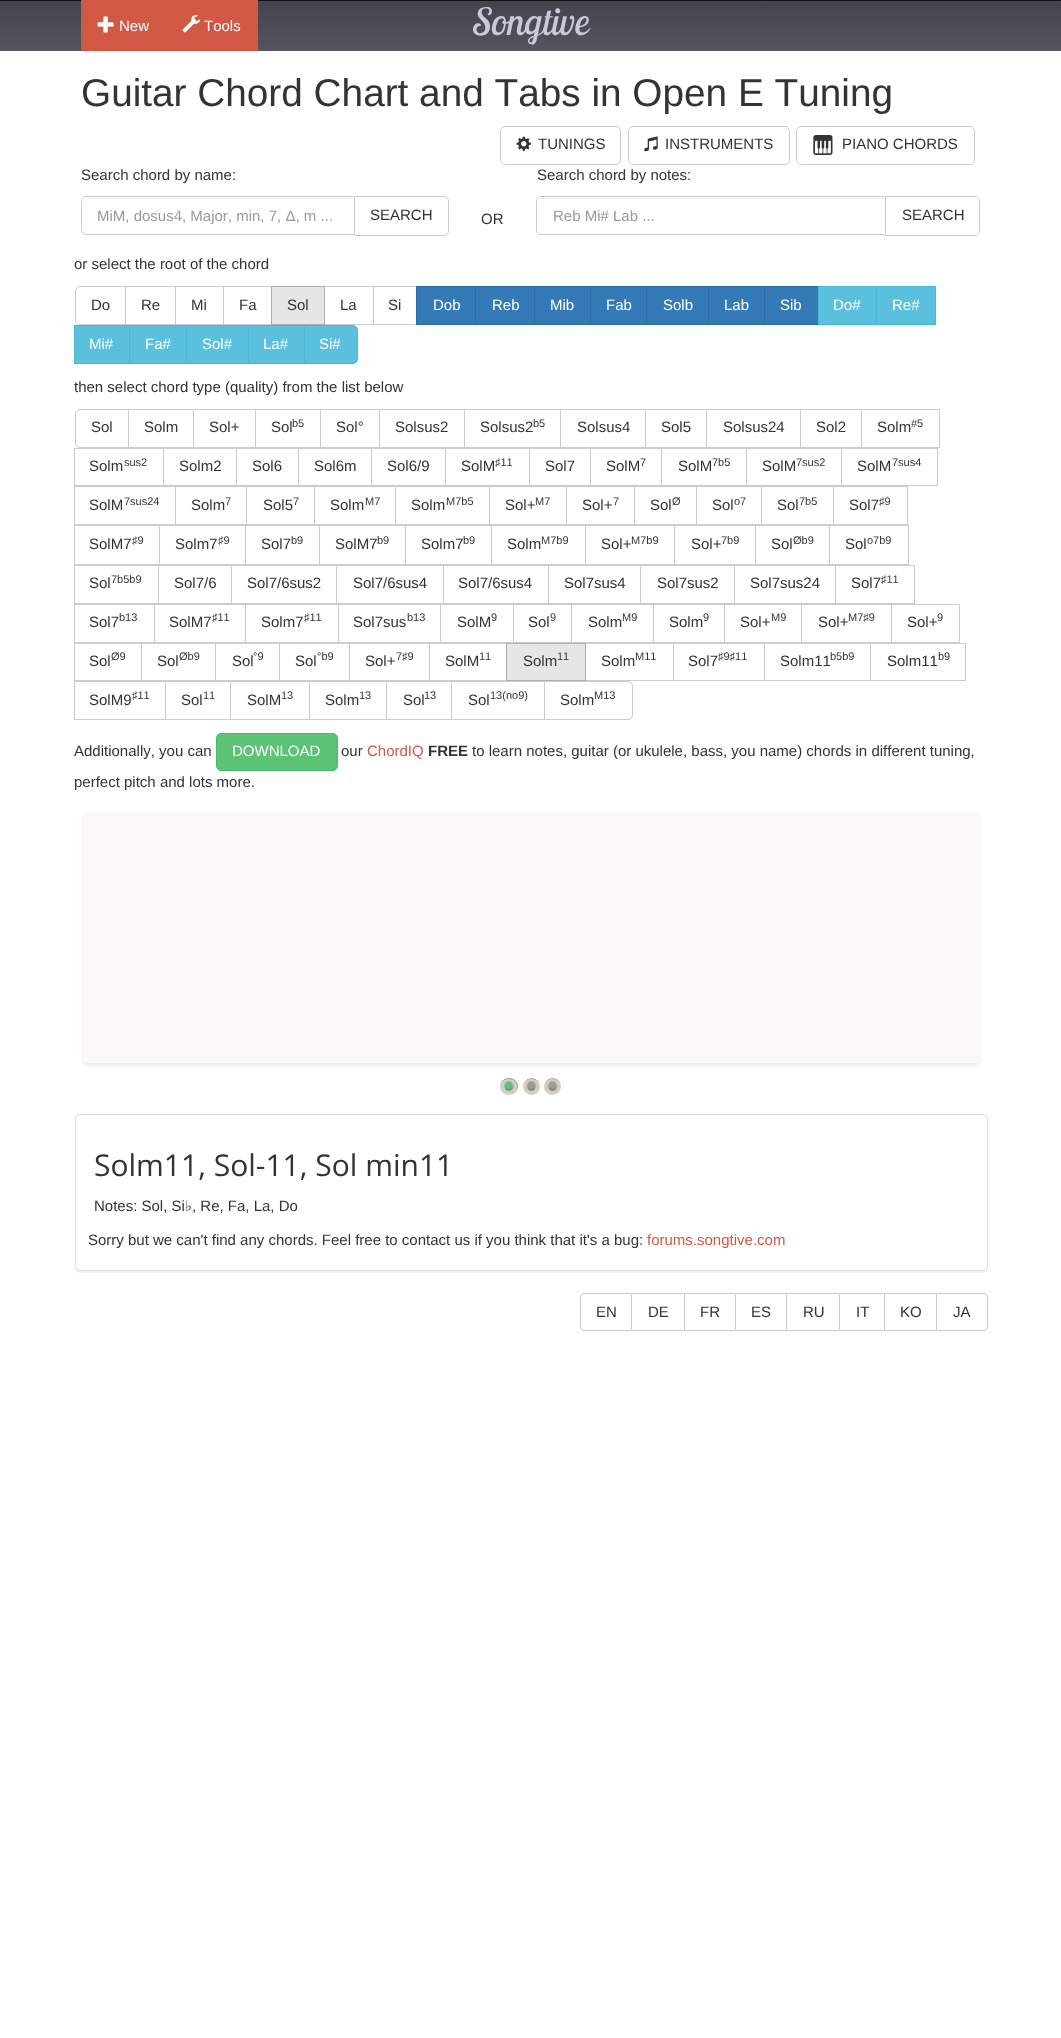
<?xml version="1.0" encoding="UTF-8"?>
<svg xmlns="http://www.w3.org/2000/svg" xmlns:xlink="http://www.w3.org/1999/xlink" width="1061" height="2038">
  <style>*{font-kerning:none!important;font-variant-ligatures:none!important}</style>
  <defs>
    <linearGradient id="g1" gradientUnits="userSpaceOnUse" x1="531" y1="1.2" x2="531" y2="51"><stop offset="0" stop-color="#45434e" /><stop offset="1" stop-color="#55535e" /></linearGradient>
  </defs>
  <rect width="100%" height="100%" fill="#ffffff" />
  <rect y="1" width="1061" height="50" fill="url(#g1)" />
  <rect width="1061" height="1" fill="#131114" />
  <rect x="81" width="177" height="51" fill="#d15844" />
  <image x="97" y="16" width="17" height="17" xlink:href="image1.png" />
  <image x="182" y="15" width="18" height="18" xlink:href="image2.png" />
  <rect x="500.5" y="126.5" width="120" height="38" rx="4.5" fill="none" stroke="#cccccc" />
  <image x="516" y="136" width="15" height="15" xlink:href="image3.png" />
  <rect x="628.5" y="126.5" width="161" height="38" rx="4.5" fill="none" stroke="#cccccc" />
  <image x="644" y="136" width="14" height="16" xlink:href="image4.png" />
  <rect x="796.5" y="126.5" width="178" height="38" rx="4.5" fill="none" stroke="#cccccc" />
  <image x="813" y="135" width="20" height="20" xlink:href="image5.png" />
  <path d="M 354.5 196.5 h 89.5 c 2.5 0 4.5 2 4.5 4.5 v 30 c 0 2.5 -2 4.5 -4.5 4.5 h -89.5 z" fill="none" stroke="#cccccc" />
  <path d="M 86 196 h 269 v 39 h -269 c -3 0 -5 -2 -5 -5 v -29 c 0 -3 2 -5 5 -5 z" fill="#ffffff" />
  <path d="M 86 199 h 268 v -1 h -267 c -1 0 -2 1 -3 1 z" fill="#ececec" />
  <path d="M 86 196.5 h 268.5 v 38 h -268.5 c -2.5 0 -4.5 -2 -4.5 -4.5 v -29 c 0 -2.5 2 -4.5 4.5 -4.5 z" fill="none" stroke="#cccccc" />
  <path d="M 885.5 196.5 h 89.5 c 2.5 0 4.5 2 4.5 4.5 v 30 c 0 2.5 -2 4.5 -4.5 4.5 h -89.5 z" fill="none" stroke="#cccccc" />
  <path d="M 541 196 h 345 v 39 h -345 c -3 0 -5 -2 -5 -5 v -29 c 0 -3 2 -5 5 -5 z" fill="#ffffff" />
  <path d="M 541 199 h 344 v -1 h -343 c -1 0 -3 1 -3 2 z" fill="#ececec" />
  <path d="M 541 196.5 h 344.5 v 38 h -344.5 c -2.5 0 -4.5 -2 -4.5 -4.5 v -29 c 0 -2.5 2 -4.5 4.5 -4.5 z" fill="none" stroke="#cccccc" />
  <path d="M 80 286.5 h 45.5 v 38 h -45.5 c -2.5 0 -4.5 -2 -4.5 -4.5 v -29 c 0 -2.5 2 -4.5 4.5 -4.5 z" fill="none" stroke="#cccccc" />
  <rect x="125.5" y="286.5" width="50" height="38" fill="none" stroke="#cccccc" />
  <rect x="175.5" y="286.5" width="48" height="38" fill="none" stroke="#cccccc" />
  <rect x="223.5" y="286.5" width="49" height="38" fill="none" stroke="#cccccc" />
  <rect x="324.5" y="286.5" width="49" height="38" fill="none" stroke="#cccccc" />
  <rect x="271.5" y="286.5" width="53" height="38" fill="#e6e6e6" stroke="#adadad" />
  <rect x="373.5" y="286.5" width="44" height="38" fill="none" stroke="#cccccc" />
  <rect x="416.5" y="286.5" width="59" height="38" fill="#337ab7" stroke="#2e6da4" />
  <rect x="475.5" y="286.5" width="59" height="38" fill="#337ab7" stroke="#2e6da4" />
  <rect x="534.5" y="286.5" width="56" height="38" fill="#337ab7" stroke="#2e6da4" />
  <rect x="591" y="287" width="55" height="37" fill="#337ab7" />
  <rect x="590.5" y="286.5" width="57" height="38" fill="none" stroke="#2e6da4" />
  <rect x="646.5" y="286.5" width="62" height="38" fill="#337ab7" stroke="#2e6da4" />
  <rect x="708.5" y="286.5" width="56" height="38" fill="#337ab7" stroke="#2e6da4" />
  <rect x="764.5" y="286.5" width="54" height="38" fill="#337ab7" stroke="#2e6da4" />
  <rect x="819" y="287" width="57" height="37" fill="#5bc0de" />
  <rect x="818.5" y="286.5" width="59" height="38" fill="none" stroke="#46b8da" />
  <rect x="876.5" y="286.5" width="59" height="38" fill="#5bc0de" stroke="#46b8da" />
  <rect x="74.5" y="325.5" width="55" height="38" fill="#5bc0de" stroke="#46b8da" />
  <rect x="130" y="326" width="56" height="37" fill="#5bc0de" />
  <rect x="129.5" y="325.5" width="58" height="38" fill="none" stroke="#46b8da" />
  <rect x="186.5" y="325.5" width="62" height="38" fill="#5bc0de" stroke="#46b8da" />
  <rect x="248.5" y="325.5" width="56" height="38" fill="#5bc0de" stroke="#46b8da" />
  <path d="M 304.5 325.5 h 48.5 c 2.5 0 4.5 2 4.5 4.5 v 29 c 0 2.5 -2 4.5 -4.5 4.5 h -48.5 z" fill="#5bc0de" stroke="#46b8da" />
  <path d="M 80 409.5 h 48.5 v 38 h -48.5 c -2.5 0 -4.5 -2 -4.5 -4.5 v -29 c 0 -2.5 2 -4.5 4.5 -4.5 z" fill="none" stroke="#cccccc" />
  <rect x="128.5" y="409.5" width="65" height="38" fill="none" stroke="#cccccc" />
  <rect x="193.5" y="409.5" width="62" height="38" fill="none" stroke="#cccccc" />
  <rect x="255.5" y="409.5" width="65" height="38" fill="none" stroke="#cccccc" />
  <rect x="320.5" y="409.5" width="59" height="38" fill="none" stroke="#cccccc" />
  <rect x="379.5" y="409.5" width="85" height="38" fill="none" stroke="#cccccc" />
  <rect x="464.5" y="409.5" width="96" height="38" fill="none" stroke="#cccccc" />
  <rect x="560.5" y="409.5" width="85" height="38" fill="none" stroke="#cccccc" />
  <rect x="645.5" y="409.5" width="62" height="38" fill="none" stroke="#cccccc" />
  <rect x="707" y="410" width="1" height="37" fill="#ffffff" />
  <rect x="706.5" y="409.5" width="94" height="38" fill="none" stroke="#cccccc" />
  <rect x="800.5" y="409.5" width="62" height="38" fill="none" stroke="#cccccc" />
  <rect x="862" y="410" width="1" height="37" fill="#ffffff" />
  <rect x="861.5" y="409.5" width="78" height="38" fill="none" stroke="#cccccc" />
  <rect x="74.5" y="448.5" width="89" height="37" fill="none" stroke="#cccccc" />
  <rect x="163.5" y="448.5" width="74" height="37" fill="none" stroke="#cccccc" />
  <rect x="237" y="449" width="1" height="36" fill="#ffffff" />
  <rect x="236.5" y="448.5" width="62" height="37" fill="none" stroke="#cccccc" />
  <rect x="298.5" y="448.5" width="74" height="37" fill="none" stroke="#cccccc" />
  <rect x="372" y="449" width="1" height="36" fill="#ffffff" />
  <rect x="371.5" y="448.5" width="74" height="37" fill="none" stroke="#cccccc" />
  <rect x="445.5" y="448.5" width="84" height="37" fill="none" stroke="#cccccc" />
  <rect x="529.5" y="448.5" width="61" height="37" fill="none" stroke="#cccccc" />
  <rect x="590.5" y="448.5" width="72" height="37" fill="none" stroke="#cccccc" />
  <rect x="662" y="449" width="1" height="36" fill="#ffffff" />
  <rect x="661.5" y="448.5" width="86" height="37" fill="none" stroke="#cccccc" />
  <rect x="747" y="449" width="1" height="36" fill="#ffffff" />
  <rect x="746.5" y="448.5" width="96" height="37" fill="none" stroke="#cccccc" />
  <rect x="842" y="449" width="1" height="36" fill="#ffffff" />
  <rect x="841.5" y="448.5" width="96" height="37" fill="none" stroke="#cccccc" />
  <rect x="74.5" y="486.5" width="101" height="38" fill="none" stroke="#cccccc" />
  <rect x="175.5" y="486.5" width="72" height="38" fill="none" stroke="#cccccc" />
  <rect x="247" y="487" width="1" height="37" fill="#ffffff" />
  <rect x="246.5" y="486.5" width="68" height="38" fill="none" stroke="#cccccc" />
  <rect x="314.5" y="486.5" width="81" height="38" fill="none" stroke="#cccccc" />
  <rect x="395.5" y="486.5" width="94" height="38" fill="none" stroke="#cccccc" />
  <rect x="489.5" y="486.5" width="78" height="38" fill="none" stroke="#cccccc" />
  <rect x="567" y="487" width="1" height="37" fill="#ffffff" />
  <rect x="566.5" y="486.5" width="68" height="38" fill="none" stroke="#cccccc" />
  <rect x="634.5" y="486.5" width="63" height="38" fill="none" stroke="#cccccc" />
  <rect x="697" y="487" width="1" height="37" fill="#ffffff" />
  <rect x="696.5" y="486.5" width="66" height="38" fill="none" stroke="#cccccc" />
  <rect x="762" y="487" width="1" height="37" fill="#ffffff" />
  <rect x="761.5" y="486.5" width="72" height="38" fill="none" stroke="#cccccc" />
  <rect x="833.5" y="486.5" width="74" height="38" fill="none" stroke="#cccccc" />
  <rect x="74.5" y="525.5" width="85" height="39" fill="none" stroke="#cccccc" />
  <rect x="159.5" y="525.5" width="86" height="39" fill="none" stroke="#cccccc" />
  <rect x="245.5" y="525.5" width="74" height="39" fill="none" stroke="#cccccc" />
  <rect x="319.5" y="525.5" width="86" height="39" fill="none" stroke="#cccccc" />
  <rect x="405.5" y="525.5" width="87" height="39" fill="none" stroke="#cccccc" />
  <rect x="492" y="526" width="1" height="38" fill="#ffffff" />
  <rect x="491.5" y="525.5" width="94" height="39" fill="none" stroke="#cccccc" />
  <rect x="585.5" y="525.5" width="89" height="39" fill="none" stroke="#cccccc" />
  <rect x="674.5" y="525.5" width="81" height="39" fill="none" stroke="#cccccc" />
  <rect x="755.5" y="525.5" width="74" height="39" fill="none" stroke="#cccccc" />
  <rect x="829.5" y="525.5" width="79" height="39" fill="none" stroke="#cccccc" />
  <rect x="74.5" y="565.5" width="84" height="38" fill="none" stroke="#cccccc" />
  <rect x="158.5" y="565.5" width="74" height="38" fill="none" stroke="#cccccc" />
  <rect x="232" y="566" width="1" height="37" fill="#ffffff" />
  <rect x="231.5" y="565.5" width="106" height="38" fill="none" stroke="#cccccc" />
  <rect x="337" y="566" width="1" height="37" fill="#ffffff" />
  <rect x="336.5" y="565.5" width="107" height="38" fill="none" stroke="#cccccc" />
  <rect x="443.5" y="565.5" width="105" height="38" fill="none" stroke="#cccccc" />
  <rect x="548.5" y="565.5" width="92" height="38" fill="none" stroke="#cccccc" />
  <rect x="640.5" y="565.5" width="94" height="38" fill="none" stroke="#cccccc" />
  <rect x="734.5" y="565.5" width="101" height="38" fill="none" stroke="#cccccc" />
  <rect x="835.5" y="565.5" width="79" height="38" fill="none" stroke="#cccccc" />
  <rect x="74.5" y="604.5" width="80" height="38" fill="none" stroke="#cccccc" />
  <rect x="154.5" y="604.5" width="91" height="38" fill="none" stroke="#cccccc" />
  <rect x="245.5" y="604.5" width="93" height="38" fill="none" stroke="#cccccc" />
  <rect x="338.5" y="604.5" width="102" height="38" fill="none" stroke="#cccccc" />
  <rect x="440.5" y="604.5" width="73" height="38" fill="none" stroke="#cccccc" />
  <rect x="513.5" y="604.5" width="59" height="38" fill="none" stroke="#cccccc" />
  <rect x="572" y="605" width="1" height="37" fill="#ffffff" />
  <rect x="571.5" y="604.5" width="82" height="38" fill="none" stroke="#cccccc" />
  <rect x="653.5" y="604.5" width="71" height="38" fill="none" stroke="#cccccc" />
  <rect x="724.5" y="604.5" width="78" height="38" fill="none" stroke="#cccccc" />
  <rect x="802" y="605" width="1" height="37" fill="#ffffff" />
  <rect x="801.5" y="604.5" width="91" height="38" fill="none" stroke="#cccccc" />
  <rect x="892" y="605" width="1" height="37" fill="#ffffff" />
  <rect x="891.5" y="604.5" width="68" height="38" fill="none" stroke="#cccccc" />
  <rect x="74.5" y="643.5" width="68" height="37" fill="none" stroke="#cccccc" />
  <rect x="142" y="644" width="1" height="36" fill="#ffffff" />
  <rect x="141.5" y="643.5" width="74" height="37" fill="none" stroke="#cccccc" />
  <rect x="215.5" y="643.5" width="64" height="37" fill="none" stroke="#cccccc" />
  <rect x="279.5" y="643.5" width="70" height="37" fill="none" stroke="#cccccc" />
  <rect x="349.5" y="643.5" width="80" height="37" fill="none" stroke="#cccccc" />
  <rect x="429.5" y="643.5" width="78" height="37" fill="none" stroke="#cccccc" />
  <rect x="585.5" y="643.5" width="88" height="37" fill="none" stroke="#cccccc" />
  <rect x="506.5" y="643.5" width="79" height="37" fill="#e6e6e6" stroke="#adadad" />
  <rect x="673.5" y="643.5" width="91" height="37" fill="none" stroke="#cccccc" />
  <rect x="764.5" y="643.5" width="106" height="37" fill="none" stroke="#cccccc" />
  <rect x="870.5" y="643.5" width="95" height="37" fill="none" stroke="#cccccc" />
  <rect x="74.5" y="681.5" width="91" height="38" fill="none" stroke="#cccccc" />
  <rect x="165.5" y="681.5" width="65" height="38" fill="none" stroke="#cccccc" />
  <rect x="230.5" y="681.5" width="79" height="38" fill="none" stroke="#cccccc" />
  <rect x="309.5" y="681.5" width="78" height="38" fill="none" stroke="#cccccc" />
  <rect x="387" y="682" width="1" height="37" fill="#ffffff" />
  <rect x="386.5" y="681.5" width="66" height="38" fill="none" stroke="#cccccc" />
  <rect x="452" y="682" width="1" height="37" fill="#ffffff" />
  <rect x="451.5" y="681.5" width="93" height="38" fill="none" stroke="#cccccc" />
  <path d="M 544.5 681.5 h 83.5 c 2.5 0 4.5 2 4.5 4.5 v 29 c 0 2.5 -2 4.5 -4.5 4.5 h -83.5 z" fill="#ffffff" stroke="#cccccc" />
  <rect x="216.5" y="733.5" width="121" height="37" rx="4.5" fill="#5cc276" stroke="#49bb66" />
  <rect x="84" y="815" width="895" height="250" fill="#000000" fill-opacity="0.1" filter="blur(2px)" />
  <rect x="84" y="813" width="895" height="250" fill="#faf9f7" />
  <rect x="500" y="1078" width="18" height="17" rx="8.5" fill="#d2cfc8" />
  <image x="503" y="1081" width="11" height="11" xlink:href="image6.png" />
  <path d="M 509 1079 c 7.5 0 9.5 7.5 7.5 12.5 c 1.5 -2 2 -4.5 1.5 -6.5 c -2 -10.5 -18.5 -8.5 -18 2 c 0 -4 3 -8 9 -8 z" fill="#000000" fill-opacity="0.2" />
  <circle cx="531.5" cy="1086.5" r="8.5" fill="#d2cfc8" />
  <image x="526" y="1081" width="11" height="11" xlink:href="image7.png" />
  <path d="M 531 1079 c 6 0 9 4 9 8 c 0.5 -10 -14 -12.5 -16.5 -2.5 c 1 -3 3.5 -5.5 7.5 -5.5 z" fill="#000000" fill-opacity="0.2" />
  <circle cx="552.5" cy="1086.5" r="8.5" fill="#d2cfc8" />
  <image x="547" y="1081" width="11" height="11" xlink:href="image8.png" />
  <path d="M 552 1079 c 6 0 9 4 9 8 c 0.5 -10 -14 -12.5 -16.5 -2.5 c 1 -3 3.5 -5.5 7.5 -5.5 z" fill="#000000" fill-opacity="0.2" />
  <rect x="75" y="1115" width="913" height="158" rx="5" fill="#000000" fill-opacity="0.05" filter="blur(0.5px)" />
  <rect x="75.5" y="1114.5" width="912" height="156" rx="4.5" fill="#ffffff" stroke="#dddddd" />
  <path d="M 585 1293.5 h 47.5 v 37 h -47.5 c -2.5 0 -4.5 -2 -4.5 -4.5 v -28 c 0 -2.5 2 -4.5 4.5 -4.5 z" fill="none" stroke="#cccccc" />
  <rect x="632" y="1294" width="1" height="36" fill="#ffffff" />
  <rect x="631.5" y="1293.5" width="53" height="37" fill="none" stroke="#cccccc" />
  <rect x="684.5" y="1293.5" width="51" height="37" fill="none" stroke="#cccccc" />
  <rect x="735.5" y="1293.5" width="52" height="37" fill="none" stroke="#cccccc" />
  <rect x="787" y="1294" width="1" height="36" fill="#ffffff" />
  <rect x="786.5" y="1293.5" width="53" height="37" fill="none" stroke="#cccccc" />
  <rect x="839.5" y="1293.5" width="45" height="37" fill="none" stroke="#cccccc" />
  <rect x="884.5" y="1293.5" width="53" height="37" fill="none" stroke="#cccccc" />
  <path d="M 936.5 1293.5 h 46.5 c 2.5 0 4.5 2 4.5 4.5 v 28 c 0 2.5 -2 4.5 -4.5 4.5 h -46.5 z" fill="#ffffff" stroke="#cccccc" />
  <text x="119" y="31" style="font-family: Liberation Sans; font-size: 15px; fill: #ffffff">New</text>
  <text x="204" y="31" style="font-family: Liberation Sans; font-size: 15px; fill: #ffffff">Tools</text>
  <text x="473" y="35" style="font-family: Lobster Two; font-size: 37.5px; font-style: italic; fill: #cbc9d6">Songtive</text>
  <text x="81" y="106" style="font-family: Liberation Sans; font-size: 38.75px; fill: #333333">Guitar Chord Chart and Tabs in Open E Tuning</text>
  <text x="538" y="149" style="font-family: Liberation Sans; font-size: 15px; fill: #333333">TUNINGS</text>
  <text x="665" y="149" style="font-family: Liberation Sans; font-size: 15px; fill: #333333">INSTRUMENTS</text>
  <text x="842" y="149" style="font-family: Liberation Sans; font-size: 15px; fill: #333333">PIANO CHORDS</text>
  <text x="81" y="180" style="font-family: Liberation Sans; font-size: 15px; fill: #333333">Search chord by name:</text>
  <text x="97" y="221" style="font-family: Liberation Sans; font-size: 15px; fill: #999999">MiM, dosus4, Major, min, 7, Δ, m ...</text>
  <text x="370" y="220" style="font-family: Liberation Sans; font-size: 15px; fill: #333333">SEARCH</text>
  <text x="481" y="224" style="font-family: Liberation Sans; font-size: 15px; fill: #333333">OR</text>
  <text x="537" y="180" style="font-family: Liberation Sans; font-size: 15px; fill: #333333">Search chord by notes:</text>
  <text x="553" y="221" style="font-family: Liberation Sans; font-size: 15px; fill: #999999">Reb Mi# Lab ...</text>
  <text x="902" y="220" style="font-family: Liberation Sans; font-size: 15px; fill: #333333">SEARCH</text>
  <text x="74" y="269" style="font-family: Liberation Sans; font-size: 15px; fill: #333333">or select the root of the chord</text>
  <text x="91" y="310" style="font-family: Liberation Sans; font-size: 15px; fill: #333333">Do</text>
  <text x="141" y="310" style="font-family: Liberation Sans; font-size: 15px; fill: #333333">Re</text>
  <text x="191" y="310" style="font-family: Liberation Sans; font-size: 15px; fill: #333333">Mi</text>
  <text x="239" y="310" style="font-family: Liberation Sans; font-size: 15px; fill: #333333">Fa</text>
  <text x="287" y="310" style="font-family: Liberation Sans; font-size: 15px; fill: #333333">Sol</text>
  <text x="340" y="310" style="font-family: Liberation Sans; font-size: 15px; fill: #333333">La</text>
  <text x="388" y="310" style="font-family: Liberation Sans; font-size: 15px; fill: #333333">Si</text>
  <text x="433" y="310" style="font-family: Liberation Sans; font-size: 15px; fill: #ffffff">Dob</text>
  <text x="492" y="310" style="font-family: Liberation Sans; font-size: 15px; fill: #ffffff">Reb</text>
  <text x="550" y="310" style="font-family: Liberation Sans; font-size: 15px; fill: #ffffff">Mib</text>
  <text x="606" y="310" style="font-family: Liberation Sans; font-size: 15px; fill: #ffffff">Fab</text>
  <text x="663" y="310" style="font-family: Liberation Sans; font-size: 15px; fill: #ffffff">Solb</text>
  <text x="724" y="310" style="font-family: Liberation Sans; font-size: 15px; fill: #ffffff">Lab</text>
  <text x="780" y="310" style="font-family: Liberation Sans; font-size: 15px; fill: #ffffff">Sib</text>
  <text x="833" y="310" style="font-family: Liberation Sans; font-size: 15px; fill: #ffffff">Do#</text>
  <text x="892" y="310" style="font-family: Liberation Sans; font-size: 15px; fill: #ffffff">Re#</text>
  <text x="89" y="349" style="font-family: Liberation Sans; font-size: 15px; fill: #ffffff">Mi#</text>
  <text x="145" y="349" style="font-family: Liberation Sans; font-size: 15px; fill: #ffffff">Fa#</text>
  <text x="202" y="349" style="font-family: Liberation Sans; font-size: 15px; fill: #ffffff">Sol#</text>
  <text x="263" y="349" style="font-family: Liberation Sans; font-size: 15px; fill: #ffffff">La#</text>
  <text x="319" y="349" style="font-family: Liberation Sans; font-size: 15px; fill: #ffffff">Si#</text>
  <text x="74" y="392" style="font-family: Liberation Sans; font-size: 15px; fill: #333333">then select chord type (quality) from the list below</text>
  <text x="91" y="432" style="font-family: Liberation Sans; font-size: 15px; fill: #333333">Sol</text>
  <text x="144" y="432" style="font-family: Liberation Sans; font-size: 15px; fill: #333333">Solm</text>
  <text x="209" y="432" style="font-family: Liberation Sans; font-size: 15px; fill: #333333">Sol+</text>
  <text x="271" y="432" style="font-family: Liberation Sans; font-size: 15px; fill: #333333">Sol</text>
  <text x="292" y="427" style="font-family: Liberation Sans; font-size: 11px; fill: #333333">b5</text>
  <text x="336" y="432" style="font-family: Liberation Sans; font-size: 15px; fill: #333333">Sol°</text>
  <text x="395" y="432" style="font-family: Liberation Sans; font-size: 15px; fill: #333333">Solsus2</text>
  <text x="480" y="432" style="font-family: Liberation Sans; font-size: 15px; fill: #333333">Solsus2</text>
  <text x="533" y="427" style="font-family: Liberation Sans; font-size: 11px; fill: #333333">b5</text>
  <text x="577" y="432" style="font-family: Liberation Sans; font-size: 15px; fill: #333333">Solsus4</text>
  <text x="661" y="432" style="font-family: Liberation Sans; font-size: 15px; fill: #333333">Sol5</text>
  <text x="723" y="432" style="font-family: Liberation Sans; font-size: 15px; fill: #333333">Solsus24</text>
  <text x="816" y="432" style="font-family: Liberation Sans; font-size: 15px; fill: #333333">Sol2</text>
  <text x="877" y="432" style="font-family: Liberation Sans; font-size: 15px; fill: #333333">Solm</text>
  <text x="911" y="427" style="font-family: Liberation Sans; font-size: 11px; fill: #333333">#5</text>
  <text x="89" y="471" style="font-family: Liberation Sans; font-size: 15px; fill: #333333">Solm</text>
  <text x="124" y="466" style="font-family: Liberation Sans; font-size: 11px; fill: #333333">sus2</text>
  <text x="179" y="471" style="font-family: Liberation Sans; font-size: 15px; fill: #333333">Solm2</text>
  <text x="252" y="471" style="font-family: Liberation Sans; font-size: 15px; fill: #333333">Sol6</text>
  <text x="314" y="471" style="font-family: Liberation Sans; font-size: 15px; fill: #333333">Sol6m</text>
  <text x="387" y="471" style="font-family: Liberation Sans; font-size: 15px; fill: #333333">Sol6/9</text>
  <text x="461" y="471" style="font-family: Liberation Sans; font-size: 15px; fill: #333333">SolM</text>
  <text x="495" y="466" style="font-family: Liberation Sans; font-size: 11px; fill: #333333">♯11</text>
  <text x="545" y="471" style="font-family: Liberation Sans; font-size: 15px; fill: #333333">Sol7</text>
  <text x="606" y="471" style="font-family: Liberation Sans; font-size: 15px; fill: #333333">SolM</text>
  <text x="640" y="466" style="font-family: Liberation Sans; font-size: 11px; fill: #333333">7</text>
  <text x="678" y="471" style="font-family: Liberation Sans; font-size: 15px; fill: #333333">SolM</text>
  <text x="712" y="466" style="font-family: Liberation Sans; font-size: 11px; fill: #333333">7b5</text>
  <text x="762" y="471" style="font-family: Liberation Sans; font-size: 15px; fill: #333333">SolM</text>
  <text x="796" y="466" style="font-family: Liberation Sans; font-size: 11px; fill: #333333">7sus2</text>
  <text x="857" y="471" style="font-family: Liberation Sans; font-size: 15px; fill: #333333">SolM</text>
  <text x="892" y="466" style="font-family: Liberation Sans; font-size: 11px; fill: #333333">7sus4</text>
  <text x="89" y="510" style="font-family: Liberation Sans; font-size: 15px; fill: #333333">SolM</text>
  <text x="124" y="505" style="font-family: Liberation Sans; font-size: 11px; fill: #333333">7sus24</text>
  <text x="191" y="510" style="font-family: Liberation Sans; font-size: 15px; fill: #333333">Solm</text>
  <text x="225" y="505" style="font-family: Liberation Sans; font-size: 11px; fill: #333333">7</text>
  <text x="263" y="510" style="font-family: Liberation Sans; font-size: 15px; fill: #333333">Sol5</text>
  <text x="293" y="505" style="font-family: Liberation Sans; font-size: 11px; fill: #333333">7</text>
  <text x="330" y="510" style="font-family: Liberation Sans; font-size: 15px; fill: #333333">Solm</text>
  <text x="365" y="505" style="font-family: Liberation Sans; font-size: 11px; fill: #333333">M7</text>
  <text x="411" y="510" style="font-family: Liberation Sans; font-size: 15px; fill: #333333">Solm</text>
  <text x="446" y="505" style="font-family: Liberation Sans; font-size: 11px; fill: #333333">M7b5</text>
  <text x="505" y="510" style="font-family: Liberation Sans; font-size: 15px; fill: #333333">Sol+</text>
  <text x="535" y="505" style="font-family: Liberation Sans; font-size: 11px; fill: #333333">M7</text>
  <text x="582" y="510" style="font-family: Liberation Sans; font-size: 15px; fill: #333333">Sol+</text>
  <text x="613" y="505" style="font-family: Liberation Sans; font-size: 11px; fill: #333333">7</text>
  <text x="650" y="510" style="font-family: Liberation Sans; font-size: 15px; fill: #333333">Sol</text>
  <text x="672" y="505" style="font-family: Liberation Sans; font-size: 11px; fill: #333333">Ø</text>
  <text x="712" y="510" style="font-family: Liberation Sans; font-size: 15px; fill: #333333">Sol</text>
  <text x="734" y="505" style="font-family: Liberation Sans; font-size: 11px; fill: #333333">o7</text>
  <text x="777" y="510" style="font-family: Liberation Sans; font-size: 15px; fill: #333333">Sol</text>
  <text x="799" y="505" style="font-family: Liberation Sans; font-size: 11px; fill: #333333">7b5</text>
  <text x="849" y="510" style="font-family: Liberation Sans; font-size: 15px; fill: #333333">Sol7</text>
  <text x="879" y="505" style="font-family: Liberation Sans; font-size: 11px; fill: #333333">♯9</text>
  <text x="89" y="549" style="font-family: Liberation Sans; font-size: 15px; fill: #333333">SolM7</text>
  <text x="132" y="544" style="font-family: Liberation Sans; font-size: 11px; fill: #333333">♯9</text>
  <text x="175" y="549" style="font-family: Liberation Sans; font-size: 15px; fill: #333333">Solm7</text>
  <text x="218" y="544" style="font-family: Liberation Sans; font-size: 11px; fill: #333333">♯9</text>
  <text x="261" y="549" style="font-family: Liberation Sans; font-size: 15px; fill: #333333">Sol7</text>
  <text x="291" y="544" style="font-family: Liberation Sans; font-size: 11px; fill: #333333">b9</text>
  <text x="335" y="549" style="font-family: Liberation Sans; font-size: 15px; fill: #333333">SolM7</text>
  <text x="377" y="544" style="font-family: Liberation Sans; font-size: 11px; fill: #333333">b9</text>
  <text x="421" y="549" style="font-family: Liberation Sans; font-size: 15px; fill: #333333">Solm7</text>
  <text x="463" y="544" style="font-family: Liberation Sans; font-size: 11px; fill: #333333">b9</text>
  <text x="507" y="549" style="font-family: Liberation Sans; font-size: 15px; fill: #333333">Solm</text>
  <text x="541" y="544" style="font-family: Liberation Sans; font-size: 11px; fill: #333333">M7b9</text>
  <text x="601" y="549" style="font-family: Liberation Sans; font-size: 15px; fill: #333333">Sol+</text>
  <text x="631" y="544" style="font-family: Liberation Sans; font-size: 11px; fill: #333333">M7b9</text>
  <text x="691" y="549" style="font-family: Liberation Sans; font-size: 15px; fill: #333333">Sol+</text>
  <text x="721" y="544" style="font-family: Liberation Sans; font-size: 11px; fill: #333333">7b9</text>
  <text x="771" y="549" style="font-family: Liberation Sans; font-size: 15px; fill: #333333">Sol</text>
  <text x="793" y="544" style="font-family: Liberation Sans; font-size: 11px; fill: #333333">Øb9</text>
  <text x="845" y="549" style="font-family: Liberation Sans; font-size: 15px; fill: #333333">Sol</text>
  <text x="867" y="544" style="font-family: Liberation Sans; font-size: 11px; fill: #333333">o7b9</text>
  <text x="89" y="588" style="font-family: Liberation Sans; font-size: 15px; fill: #333333">Sol</text>
  <text x="111" y="583" style="font-family: Liberation Sans; font-size: 11px; fill: #333333">7b5b9</text>
  <text x="174" y="588" style="font-family: Liberation Sans; font-size: 15px; fill: #333333">Sol7/6</text>
  <text x="247" y="588" style="font-family: Liberation Sans; font-size: 15px; fill: #333333">Sol7/6sus2</text>
  <text x="353" y="588" style="font-family: Liberation Sans; font-size: 15px; fill: #333333">Sol7/6sus4</text>
  <text x="458" y="588" style="font-family: Liberation Sans; font-size: 15px; fill: #333333">Sol7/6sus4</text>
  <text x="564" y="588" style="font-family: Liberation Sans; font-size: 15px; fill: #333333">Sol7sus4</text>
  <text x="657" y="588" style="font-family: Liberation Sans; font-size: 15px; fill: #333333">Sol7sus2</text>
  <text x="750" y="588" style="font-family: Liberation Sans; font-size: 15px; fill: #333333">Sol7sus24</text>
  <text x="851" y="588" style="font-family: Liberation Sans; font-size: 15px; fill: #333333">Sol7</text>
  <text x="881" y="583" style="font-family: Liberation Sans; font-size: 11px; fill: #333333">♯11</text>
  <text x="89" y="627" style="font-family: Liberation Sans; font-size: 15px; fill: #333333">Sol7</text>
  <text x="119" y="621" style="font-family: Liberation Sans; font-size: 11px; fill: #333333">b13</text>
  <text x="169" y="627" style="font-family: Liberation Sans; font-size: 15px; fill: #333333">SolM7</text>
  <text x="212" y="621" style="font-family: Liberation Sans; font-size: 11px; fill: #333333">♯11</text>
  <text x="261" y="627" style="font-family: Liberation Sans; font-size: 15px; fill: #333333">Solm7</text>
  <text x="304" y="621" style="font-family: Liberation Sans; font-size: 11px; fill: #333333">♯11</text>
  <text x="353" y="627" style="font-family: Liberation Sans; font-size: 15px; fill: #333333">Sol7sus</text>
  <text x="407" y="621" style="font-family: Liberation Sans; font-size: 11px; fill: #333333">b13</text>
  <text x="457" y="627" style="font-family: Liberation Sans; font-size: 15px; fill: #333333">SolM</text>
  <text x="491" y="621" style="font-family: Liberation Sans; font-size: 11px; fill: #333333">9</text>
  <text x="528" y="627" style="font-family: Liberation Sans; font-size: 15px; fill: #333333">Sol</text>
  <text x="550" y="621" style="font-family: Liberation Sans; font-size: 11px; fill: #333333">9</text>
  <text x="588" y="627" style="font-family: Liberation Sans; font-size: 15px; fill: #333333">Solm</text>
  <text x="622" y="621" style="font-family: Liberation Sans; font-size: 11px; fill: #333333">M9</text>
  <text x="669" y="627" style="font-family: Liberation Sans; font-size: 15px; fill: #333333">Solm</text>
  <text x="703" y="621" style="font-family: Liberation Sans; font-size: 11px; fill: #333333">9</text>
  <text x="740" y="627" style="font-family: Liberation Sans; font-size: 15px; fill: #333333">Sol+</text>
  <text x="771" y="621" style="font-family: Liberation Sans; font-size: 11px; fill: #333333">M9</text>
  <text x="818" y="627" style="font-family: Liberation Sans; font-size: 15px; fill: #333333">Sol+</text>
  <text x="848" y="621" style="font-family: Liberation Sans; font-size: 11px; fill: #333333">M7♯9</text>
  <text x="907" y="627" style="font-family: Liberation Sans; font-size: 15px; fill: #333333">Sol+</text>
  <text x="937" y="621" style="font-family: Liberation Sans; font-size: 11px; fill: #333333">9</text>
  <text x="89" y="666" style="font-family: Liberation Sans; font-size: 15px; fill: #333333">Sol</text>
  <text x="111" y="660" style="font-family: Liberation Sans; font-size: 11px; fill: #333333">Ø9</text>
  <text x="157" y="666" style="font-family: Liberation Sans; font-size: 15px; fill: #333333">Sol</text>
  <text x="179" y="660" style="font-family: Liberation Sans; font-size: 11px; fill: #333333">Øb9</text>
  <text x="232" y="666" style="font-family: Liberation Sans; font-size: 15px; fill: #333333">Sol</text>
  <text x="253" y="660" style="font-family: Liberation Sans; font-size: 11px; fill: #333333">°9</text>
  <text x="295" y="666" style="font-family: Liberation Sans; font-size: 15px; fill: #333333">Sol</text>
  <text x="317" y="660" style="font-family: Liberation Sans; font-size: 11px; fill: #333333">°b9</text>
  <text x="365" y="666" style="font-family: Liberation Sans; font-size: 15px; fill: #333333">Sol+</text>
  <text x="396" y="660" style="font-family: Liberation Sans; font-size: 11px; fill: #333333">7♯9</text>
  <text x="445" y="666" style="font-family: Liberation Sans; font-size: 15px; fill: #333333">SolM</text>
  <text x="479" y="660" style="font-family: Liberation Sans; font-size: 11px; fill: #333333">11</text>
  <text x="523" y="666" style="font-family: Liberation Sans; font-size: 15px; fill: #333333">Solm</text>
  <text x="557" y="660" style="font-family: Liberation Sans; font-size: 11px; fill: #333333">11</text>
  <text x="601" y="666" style="font-family: Liberation Sans; font-size: 15px; fill: #333333">Solm</text>
  <text x="635" y="660" style="font-family: Liberation Sans; font-size: 11px; fill: #333333">M11</text>
  <text x="688" y="666" style="font-family: Liberation Sans; font-size: 15px; fill: #333333">Sol7</text>
  <text x="718" y="660" style="font-family: Liberation Sans; font-size: 11px; fill: #333333">♯9♯11</text>
  <text x="780" y="666" style="font-family: Liberation Sans; font-size: 15px; fill: #333333">Solm11</text>
  <text x="830" y="660" style="font-family: Liberation Sans; font-size: 11px; fill: #333333">b5b9</text>
  <text x="887" y="666" style="font-family: Liberation Sans; font-size: 15px; fill: #333333">Solm11</text>
  <text x="938" y="660" style="font-family: Liberation Sans; font-size: 11px; fill: #333333">b9</text>
  <text x="89" y="705" style="font-family: Liberation Sans; font-size: 15px; fill: #333333">SolM9</text>
  <text x="132" y="699" style="font-family: Liberation Sans; font-size: 11px; fill: #333333">♯11</text>
  <text x="181" y="705" style="font-family: Liberation Sans; font-size: 15px; fill: #333333">Sol</text>
  <text x="203" y="699" style="font-family: Liberation Sans; font-size: 11px; fill: #333333">11</text>
  <text x="247" y="705" style="font-family: Liberation Sans; font-size: 15px; fill: #333333">SolM</text>
  <text x="281" y="699" style="font-family: Liberation Sans; font-size: 11px; fill: #333333">13</text>
  <text x="325" y="705" style="font-family: Liberation Sans; font-size: 15px; fill: #333333">Solm</text>
  <text x="359" y="699" style="font-family: Liberation Sans; font-size: 11px; fill: #333333">13</text>
  <text x="403" y="705" style="font-family: Liberation Sans; font-size: 15px; fill: #333333">Sol</text>
  <text x="424" y="699" style="font-family: Liberation Sans; font-size: 11px; fill: #333333">13</text>
  <text x="468" y="705" style="font-family: Liberation Sans; font-size: 15px; fill: #333333">Sol</text>
  <text x="490" y="699" style="font-family: Liberation Sans; font-size: 11px; fill: #333333">13(no9)</text>
  <text x="560" y="705" style="font-family: Liberation Sans; font-size: 15px; fill: #333333">Solm</text>
  <text x="594" y="699" style="font-family: Liberation Sans; font-size: 11px; fill: #333333">M13</text>
  <text x="74" y="756" style="font-family: Liberation Sans; font-size: 15px; fill: #333333">Additionally, you can</text>
  <text x="232" y="756" style="font-family: Liberation Sans; font-size: 15px; fill: #ffffff">DOWNLOAD</text>
  <text x="341" y="756" style="font-family: Liberation Sans; font-size: 15px; fill: #333333">our</text>
  <text x="367" y="756" style="font-family: Liberation Sans; font-size: 15px; fill: #d15844">ChordIQ</text>
  <text x="428" y="756" style="font-family: Liberation Sans; font-size: 15px; font-weight: bold; fill: #333333">FREE</text>
  <text x="472" y="756" style="font-family: Liberation Sans; font-size: 15px; fill: #333333">to learn notes, guitar (or ukulele, bass, you name) chords in different tuning,</text>
  <text x="74" y="787" style="font-family: Liberation Sans; font-size: 15px; fill: #333333">perfect pitch and lots more.</text>
  <text x="94" y="1176" style="font-family: Open Sans; font-size: 30px; fill: #333333">Solm11, Sol-11, Sol min11</text>
  <text x="94" y="1211" style="font-family: Liberation Sans; font-size: 15px; fill: #333333">Notes: Sol, Si</text>
  <text x="185" y="1211" style="font-family: DejaVu Sans; font-size: 15px; fill: #333333">♭</text>
  <text x="192" y="1211" style="font-family: Liberation Sans; font-size: 15px; fill: #333333">, Re, Fa, La, Do</text>
  <text x="88" y="1245" style="font-family: Liberation Sans; font-size: 15px; fill: #333333">Sorry but we can't find any chords. Feel free to contact us if you think that it's a bug:</text>
  <text x="647" y="1245" style="font-family: Liberation Sans; font-size: 15px; fill: #d15844">forums.songtive.com</text>
  <text x="596" y="1317" style="font-family: Liberation Sans; font-size: 15px; fill: #333333">EN</text>
  <text x="648" y="1317" style="font-family: Liberation Sans; font-size: 15px; fill: #333333">DE</text>
  <text x="700" y="1317" style="font-family: Liberation Sans; font-size: 15px; fill: #333333">FR</text>
  <text x="751" y="1317" style="font-family: Liberation Sans; font-size: 15px; fill: #333333">ES</text>
  <text x="803" y="1317" style="font-family: Liberation Sans; font-size: 15px; fill: #333333">RU</text>
  <text x="856" y="1317" style="font-family: Liberation Sans; font-size: 15px; fill: #333333">IT</text>
  <text x="900" y="1317" style="font-family: Liberation Sans; font-size: 15px; fill: #333333">KO</text>
  <text x="953" y="1317" style="font-family: Liberation Sans; font-size: 15px; fill: #333333">JA</text>
</svg>
